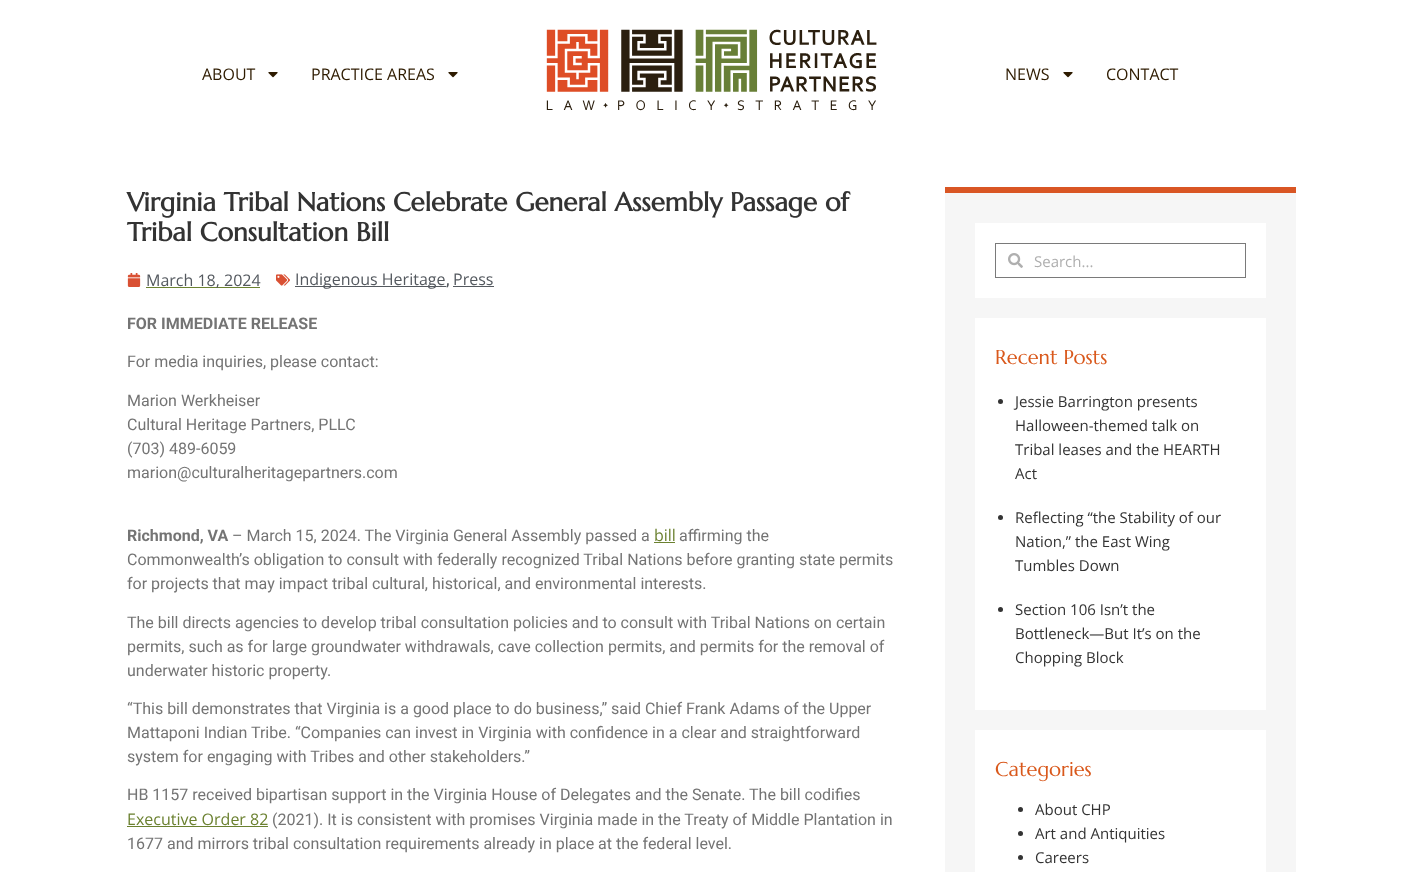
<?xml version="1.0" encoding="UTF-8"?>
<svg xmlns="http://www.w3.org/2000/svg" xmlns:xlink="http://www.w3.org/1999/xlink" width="1423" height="872">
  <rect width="100%" height="100%" fill="#ffffff" />
  <image x="268" y="72" width="10" height="6" xlink:href="image1.png" />
  <image x="448" y="72" width="10" height="6" xlink:href="image1.png" />
  <image x="546" y="29" width="331" height="82" xlink:href="image2.png" />
  <image x="1063" y="72" width="10" height="6" xlink:href="image1.png" />
  <image x="127" y="273" width="14" height="14" xlink:href="image3.png" />
  <rect x="146" y="287" width="114" height="1" fill="#6b8130" />
  <image x="276" y="274" width="14" height="12" xlink:href="image4.png" />
  <rect x="295" y="286" width="151" height="1" fill="#54595f" />
  <rect x="453" y="286" width="41" height="1" fill="#54595f" />
  <rect x="654" y="542" width="21" height="1" fill="#6b8130" />
  <rect x="127" y="826" width="141" height="1" fill="#6b8130" />
  <rect x="945" y="193" width="351" height="679" fill="#f6f6f6" />
  <rect x="945" y="187" width="351" height="6" fill="#d95624" />
  <rect x="975" y="223" width="291" height="75" fill="#ffffff" />
  <rect x="995.5" y="243.5" width="250" height="34" fill="none" stroke="#7a7a7a" />
  <image x="1008" y="253" width="15" height="15" xlink:href="image5.png" />
  <rect x="975" y="318" width="291" height="392" fill="#ffffff" />
  <circle cx="1000.5" cy="401.5" r="2.5" fill="#333333" />
  <circle cx="1000.5" cy="517.5" r="2.5" fill="#333333" />
  <circle cx="1000.5" cy="609.5" r="2.5" fill="#333333" />
  <rect x="975" y="730" width="291" height="142" fill="#ffffff" />
  <circle cx="1020.5" cy="809.5" r="2.5" fill="#333333" />
  <circle cx="1020.5" cy="833.5" r="2.5" fill="#333333" />
  <circle cx="1020.5" cy="857.5" r="2.5" fill="#333333" />
  <text x="202" y="80" style="font-family: Open Sans; font-size: 16px; fill: #2e1b00">ABOUT</text>
  <text x="311" y="80" style="font-family: Open Sans; font-size: 16px; fill: #2e1b00">PRACTICE AREAS</text>
  <text x="1005" y="80" style="font-family: Open Sans; font-size: 16px; fill: #2e1b00">NEWS</text>
  <text x="1106" y="80" style="font-family: Open Sans; font-size: 16px; fill: #2e1b00">CONTACT</text>
  <text x="127" y="211" style="font-family: Marcellus; font-size: 26px; font-weight: bold; fill: #333333">Virginia Tribal Nations Celebrate General Assembly Passage of</text>
  <text x="127" y="241" style="font-family: Marcellus; font-size: 26px; font-weight: bold; fill: #333333">Tribal Consultation Bill</text>
  <text x="146" y="286" style="font-family: Open Sans; font-size: 16px; fill: #54595f">March 18, 2024</text>
  <text x="295" y="285" style="font-family: Open Sans; font-size: 16px; fill: #54595f">Indigenous Heritage</text>
  <text x="446" y="285" style="font-family: Roboto; font-size: 16px; font-weight: 500; fill: #54595f">,</text>
  <text x="453" y="285" style="font-family: Open Sans; font-size: 16px; fill: #54595f">Press</text>
  <text x="127" y="329" style="font-family: Roboto; font-size: 16px; font-weight: bold; fill: #747474">FOR IMMEDIATE RELEASE</text>
  <text x="127" y="367" style="font-family: Roboto; font-size: 16px; fill: #747474">For media inquiries, please contact:</text>
  <text x="127" y="406" style="font-family: Roboto; font-size: 16px; fill: #747474">Marion Werkheiser</text>
  <text x="127" y="430" style="font-family: Roboto; font-size: 16px; fill: #747474">Cultural Heritage Partners, PLLC</text>
  <text x="127" y="454" style="font-family: Roboto; font-size: 16px; fill: #747474">(703) 489-6059</text>
  <text x="127" y="478" style="font-family: Roboto; font-size: 16px; fill: #747474">marion@culturalheritagepartners.com</text>
  <text x="127" y="541" style="font-family: Roboto; font-size: 16px; font-weight: bold; fill: #747474">Richmond, VA</text>
  <text x="232" y="541" style="font-family: Roboto; font-size: 16px; fill: #747474">– March 15, 2024. The Virginia General Assembly passed a</text>
  <text x="654" y="541" style="font-family: Open Sans; font-size: 16px; fill: #6b8130">bill</text>
  <text x="679" y="541" style="font-family: Roboto; font-size: 16px; fill: #747474">affirming the</text>
  <text x="127" y="565" style="font-family: Roboto; font-size: 16px; fill: #747474">Commonwealth’s obligation to consult with federally recognized Tribal Nations before granting state permits</text>
  <text x="127" y="589" style="font-family: Roboto; font-size: 16px; fill: #747474">for projects that may impact tribal cultural, historical, and environmental interests.</text>
  <text x="127" y="628" style="font-family: Roboto; font-size: 16px; fill: #747474">The bill directs agencies to develop tribal consultation policies and to consult with Tribal Nations on certain</text>
  <text x="127" y="652" style="font-family: Roboto; font-size: 16px; fill: #747474">permits, such as for large groundwater withdrawals, cave collection permits, and permits for the removal of</text>
  <text x="127" y="676" style="font-family: Roboto; font-size: 16px; fill: #747474">underwater historic property.</text>
  <text x="127" y="714" style="font-family: Roboto; font-size: 16px; fill: #747474">“This bill demonstrates that Virginia is a good place to do business,” said Chief Frank Adams of the Upper</text>
  <text x="127" y="738" style="font-family: Roboto; font-size: 16px; fill: #747474">Mattaponi Indian Tribe. “Companies can invest in Virginia with confidence in a clear and straightforward</text>
  <text x="127" y="762" style="font-family: Roboto; font-size: 16px; fill: #747474">system for engaging with Tribes and other stakeholders.”</text>
  <text x="127" y="800" style="font-family: Roboto; font-size: 16px; fill: #747474">HB 1157 received bipartisan support in the Virginia House of Delegates and the Senate. The bill codifies</text>
  <text x="127" y="825" style="font-family: Open Sans; font-size: 16px; fill: #6b8130">Executive Order 82</text>
  <text x="272" y="825" style="font-family: Roboto; font-size: 16px; fill: #747474">(2021). It is consistent with promises Virginia made in the Treaty of Middle Plantation in</text>
  <text x="127" y="849" style="font-family: Roboto; font-size: 16px; fill: #747474">1677 and mirrors tribal consultation requirements already in place at the federal level.</text>
  <text x="1034" y="267" style="font-family: Open Sans; font-size: 15px; fill: #afafaf">Search...</text>
  <text x="995" y="364" style="font-family: Marcellus; font-size: 20px; fill: #d9581b">Recent Posts</text>
  <text x="1015" y="407" style="font-family: Open Sans; font-size: 15px; fill: #333333">Jessie Barrington presents</text>
  <text x="1015" y="431" style="font-family: Open Sans; font-size: 15px; fill: #333333">Halloween-themed talk on</text>
  <text x="1015" y="455" style="font-family: Open Sans; font-size: 15px; fill: #333333">Tribal leases and the HEARTH</text>
  <text x="1015" y="479" style="font-family: Open Sans; font-size: 15px; fill: #333333">Act</text>
  <text x="1015" y="523" style="font-family: Open Sans; font-size: 15px; fill: #333333">Reflecting “the Stability of our</text>
  <text x="1015" y="547" style="font-family: Open Sans; font-size: 15px; fill: #333333">Nation,” the East Wing</text>
  <text x="1015" y="571" style="font-family: Open Sans; font-size: 15px; fill: #333333">Tumbles Down</text>
  <text x="1015" y="615" style="font-family: Open Sans; font-size: 15px; fill: #333333">Section 106 Isn’t the</text>
  <text x="1015" y="639" style="font-family: Open Sans; font-size: 15px; fill: #333333">Bottleneck—But It’s on the</text>
  <text x="1015" y="663" style="font-family: Open Sans; font-size: 15px; fill: #333333">Chopping Block</text>
  <text x="995" y="776" style="font-family: Marcellus; font-size: 20px; fill: #d9581b">Categories</text>
  <text x="1035" y="815" style="font-family: Open Sans; font-size: 15px; fill: #333333">About CHP</text>
  <text x="1035" y="839" style="font-family: Open Sans; font-size: 15px; fill: #333333">Art and Antiquities</text>
  <text x="1035" y="863" style="font-family: Open Sans; font-size: 15px; fill: #333333">Careers</text>
</svg>
